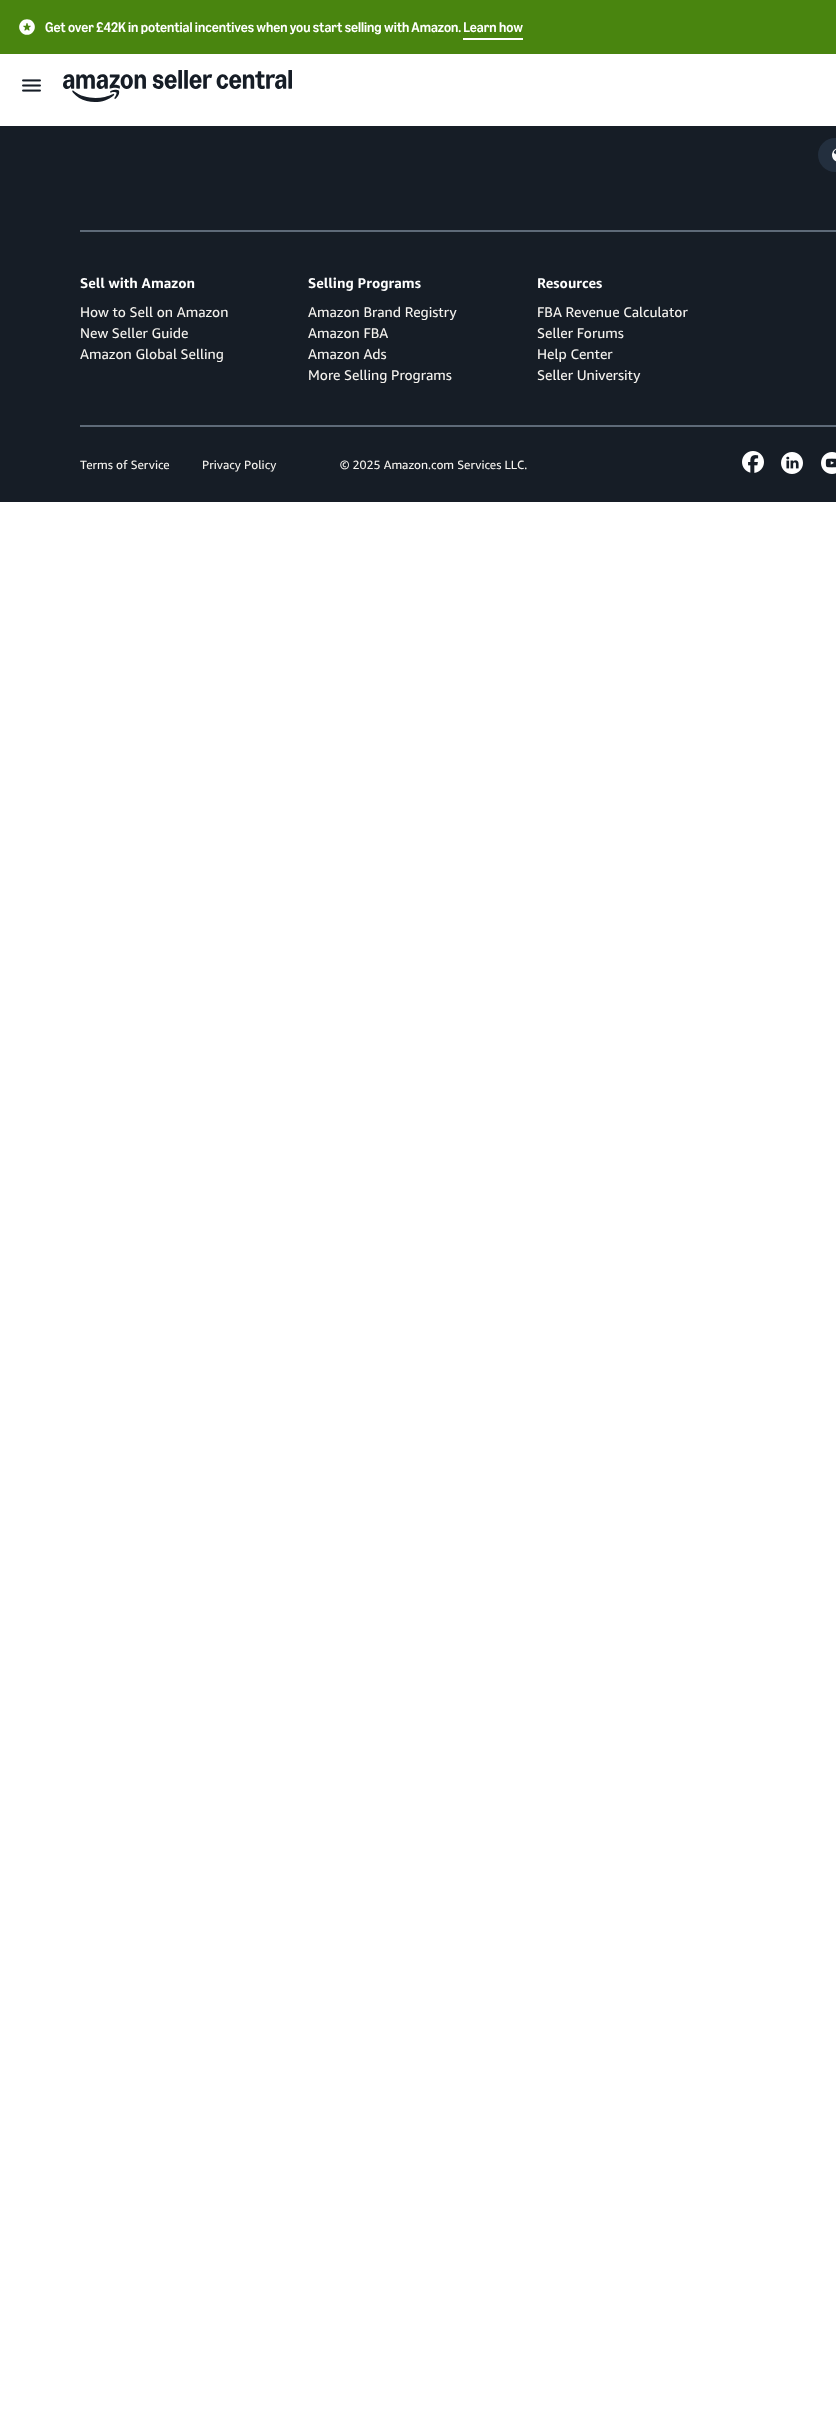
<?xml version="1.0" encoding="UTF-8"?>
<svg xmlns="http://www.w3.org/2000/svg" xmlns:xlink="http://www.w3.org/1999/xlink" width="836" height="2424">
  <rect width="100%" height="100%" fill="#ffffff" />
  <rect width="836" height="54" fill="#49850f" />
  <image x="19" y="19" width="16" height="16" xlink:href="image1.png" />
  <rect x="463" y="38" width="60" height="2" fill="#ffffff" />
  <image x="22" y="79" width="19" height="13" xlink:href="image2.png" />
  <image x="63" y="70" width="229" height="32" xlink:href="image3.png" />
  <rect y="126" width="836" height="376" fill="#161d26" />
  <rect x="818" y="138" width="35" height="34" rx="17" fill="#232f3e" />
  <image x="832" y="148" width="4" height="14" xlink:href="image4.png" />
  <rect x="80" y="230" width="756" height="2" fill="#5e6a78" />
  <rect x="80" y="425" width="756" height="2" fill="#5e6a78" />
  <image x="742" y="451" width="22" height="22" xlink:href="image5.png" />
  <image x="781" y="452" width="22" height="22" xlink:href="image6.png" />
  <image x="821" y="452" width="15" height="22" xlink:href="image7.png" />
  <text x="45" y="32" style="font-family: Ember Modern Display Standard; font-size: 14px; font-weight: 500; fill: #ffffff">Get over £42K in potential incentives when you start selling with Amazon. Learn how</text>
  <text x="80" y="288" style="font-family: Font; font-size: 14px; font-weight: bold; fill: #ffffff">Sell with Amazon</text>
  <text x="80" y="317" style="font-family: Font; font-size: 14px; fill: #f5f3ef">How to Sell on Amazon</text>
  <text x="80" y="338" style="font-family: Font; font-size: 14px; fill: #f5f3ef">New Seller Guide</text>
  <text x="80" y="359" style="font-family: Font; font-size: 14px; fill: #f5f3ef">Amazon Global Selling</text>
  <text x="308" y="288" style="font-family: Font; font-size: 14px; font-weight: bold; fill: #ffffff">Selling Programs</text>
  <text x="308" y="317" style="font-family: Font; font-size: 14px; fill: #f5f3ef">Amazon Brand Registry</text>
  <text x="308" y="338" style="font-family: Font; font-size: 14px; fill: #f5f3ef">Amazon FBA</text>
  <text x="308" y="359" style="font-family: Font; font-size: 14px; fill: #f5f3ef">Amazon Ads</text>
  <text x="308" y="380" style="font-family: Font; font-size: 14px; fill: #f5f3ef">More Selling Programs</text>
  <text x="537" y="288" style="font-family: Font; font-size: 14px; font-weight: bold; fill: #ffffff">Resources</text>
  <text x="537" y="317" style="font-family: Font; font-size: 14px; fill: #f5f3ef">FBA Revenue Calculator</text>
  <text x="537" y="338" style="font-family: Font; font-size: 14px; fill: #f5f3ef">Seller Forums</text>
  <text x="537" y="359" style="font-family: Font; font-size: 14px; fill: #f5f3ef">Help Center</text>
  <text x="537" y="380" style="font-family: Font; font-size: 14px; fill: #f5f3ef">Seller University</text>
  <text x="80" y="469" style="font-family: Font; font-size: 12px; fill: #f5f3ef">Terms of Service</text>
  <text x="202" y="469" style="font-family: Font; font-size: 12px; fill: #f5f3ef">Privacy Policy</text>
  <text x="340" y="469" style="font-family: Font; font-size: 12px; fill: #f5f3ef">© 2025 Amazon.com Services LLC.</text>
</svg>
